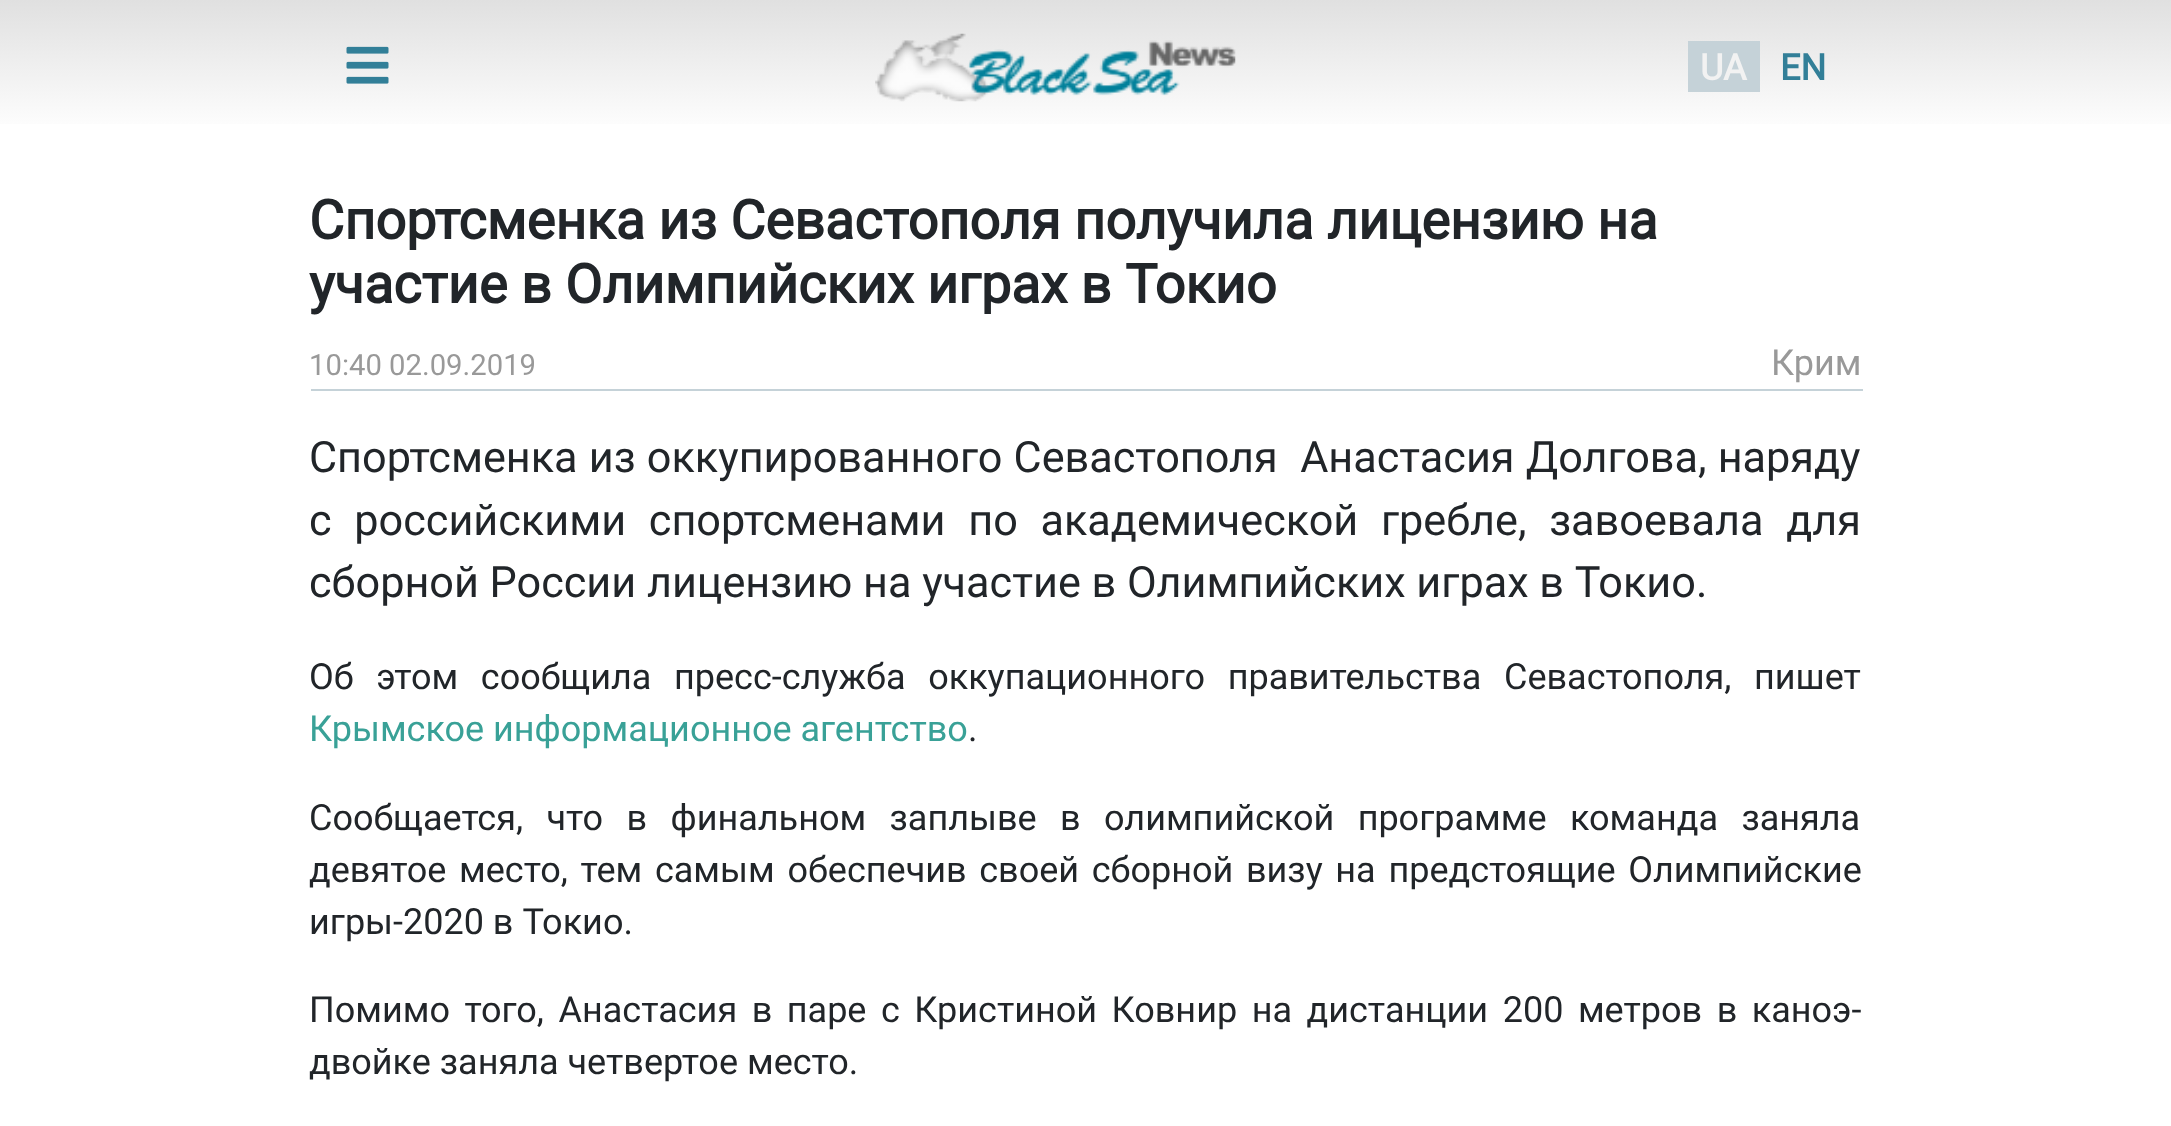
<?xml version="1.0" encoding="UTF-8"?>
<svg xmlns="http://www.w3.org/2000/svg" xmlns:xlink="http://www.w3.org/1999/xlink" width="2171" height="1126">
  <defs>
    <linearGradient id="g1" gradientUnits="userSpaceOnUse" x1="1086" y1="0" x2="1086" y2="135"><stop offset="0" stop-color="#e0e0e0" /><stop offset="1" stop-color="#ffffff" /></linearGradient>
  </defs>
  <rect width="100%" height="100%" fill="#ffffff" />
  <rect width="2171" height="124" fill="url(#g1)" />
  <image x="346" y="46" width="43" height="38" xlink:href="image1.png" />
  <image x="875" y="33" width="361" height="69" xlink:href="image2.png" />
  <rect x="1688" y="41" width="72" height="51" fill="#c5d2d8" />
  <rect x="311" y="389" width="1552" height="2" fill="#c5d2d8" />
  <text x="1700" y="80" style="font-family: Roboto; font-size: 36px; font-weight: bold; fill: #f2f2f2">UA</text>
  <text x="1780" y="80" style="font-family: Roboto; font-size: 36px; font-weight: bold; fill: #327f98">EN</text>
  <text x="309" y="239" style="font-family: Roboto; font-size: 54px; font-weight: bold; fill: #212529">Спортсменка из Севастополя получила лицензию на</text>
  <text x="309" y="303" style="font-family: Roboto; font-size: 54px; font-weight: bold; fill: #212529">участие в Олимпийских играх в Токио</text>
  <text x="309" y="375" style="font-family: Roboto; font-size: 29.25px; fill: #999999">10:40 02.09.2019</text>
  <text x="1771" y="375" style="font-family: Roboto; font-size: 36px; fill: #999999">Крим</text>
  <text x="309" y="472" word-spacing="0.5" style="font-family: Roboto; font-size: 43.2px; fill: #212529" xml:space="preserve">Спортсменка из оккупированного Севастополя  Анастасия Долгова, наряду</text>
  <text x="309" y="535" word-spacing="12" style="font-family: Roboto; font-size: 43.2px; fill: #212529">с российскими спортсменами по академической гребле, завоевала для</text>
  <text x="309" y="597" style="font-family: Roboto; font-size: 43.2px; fill: #212529">сборной России лицензию на участие в Олимпийских играх в Токио.</text>
  <text x="309" y="689" word-spacing="13.75" style="font-family: Roboto; font-size: 36px; fill: #212529">Об этом сообщила пресс-служба оккупационного правительства Севастополя, пишет</text>
  <text x="309" y="741" style="font-family: Roboto; font-size: 36px; fill: #39a197">Крымское информационное агентство</text>
  <text x="968" y="741" style="font-family: Roboto; font-size: 36px; fill: #212529">.</text>
  <text x="309" y="830" word-spacing="14.5" style="font-family: Roboto; font-size: 36px; fill: #212529">Сообщается, что в финальном заплыве в олимпийской программе команда заняла</text>
  <text x="309" y="882" word-spacing="3.75" style="font-family: Roboto; font-size: 36px; fill: #212529">девятое место, тем самым обеспечив своей сборной визу на предстоящие Олимпийские</text>
  <text x="309" y="934" style="font-family: Roboto; font-size: 36px; fill: #212529">игры-2020 в Токио.</text>
  <text x="309" y="1022" word-spacing="5.6" style="font-family: Roboto; font-size: 36px; fill: #212529">Помимо того, Анастасия в паре с Кристиной Ковнир на дистанции 200 метров в каноэ-</text>
  <text x="309" y="1074" style="font-family: Roboto; font-size: 36px; fill: #212529">двойке заняла четвертое место.</text>
</svg>
